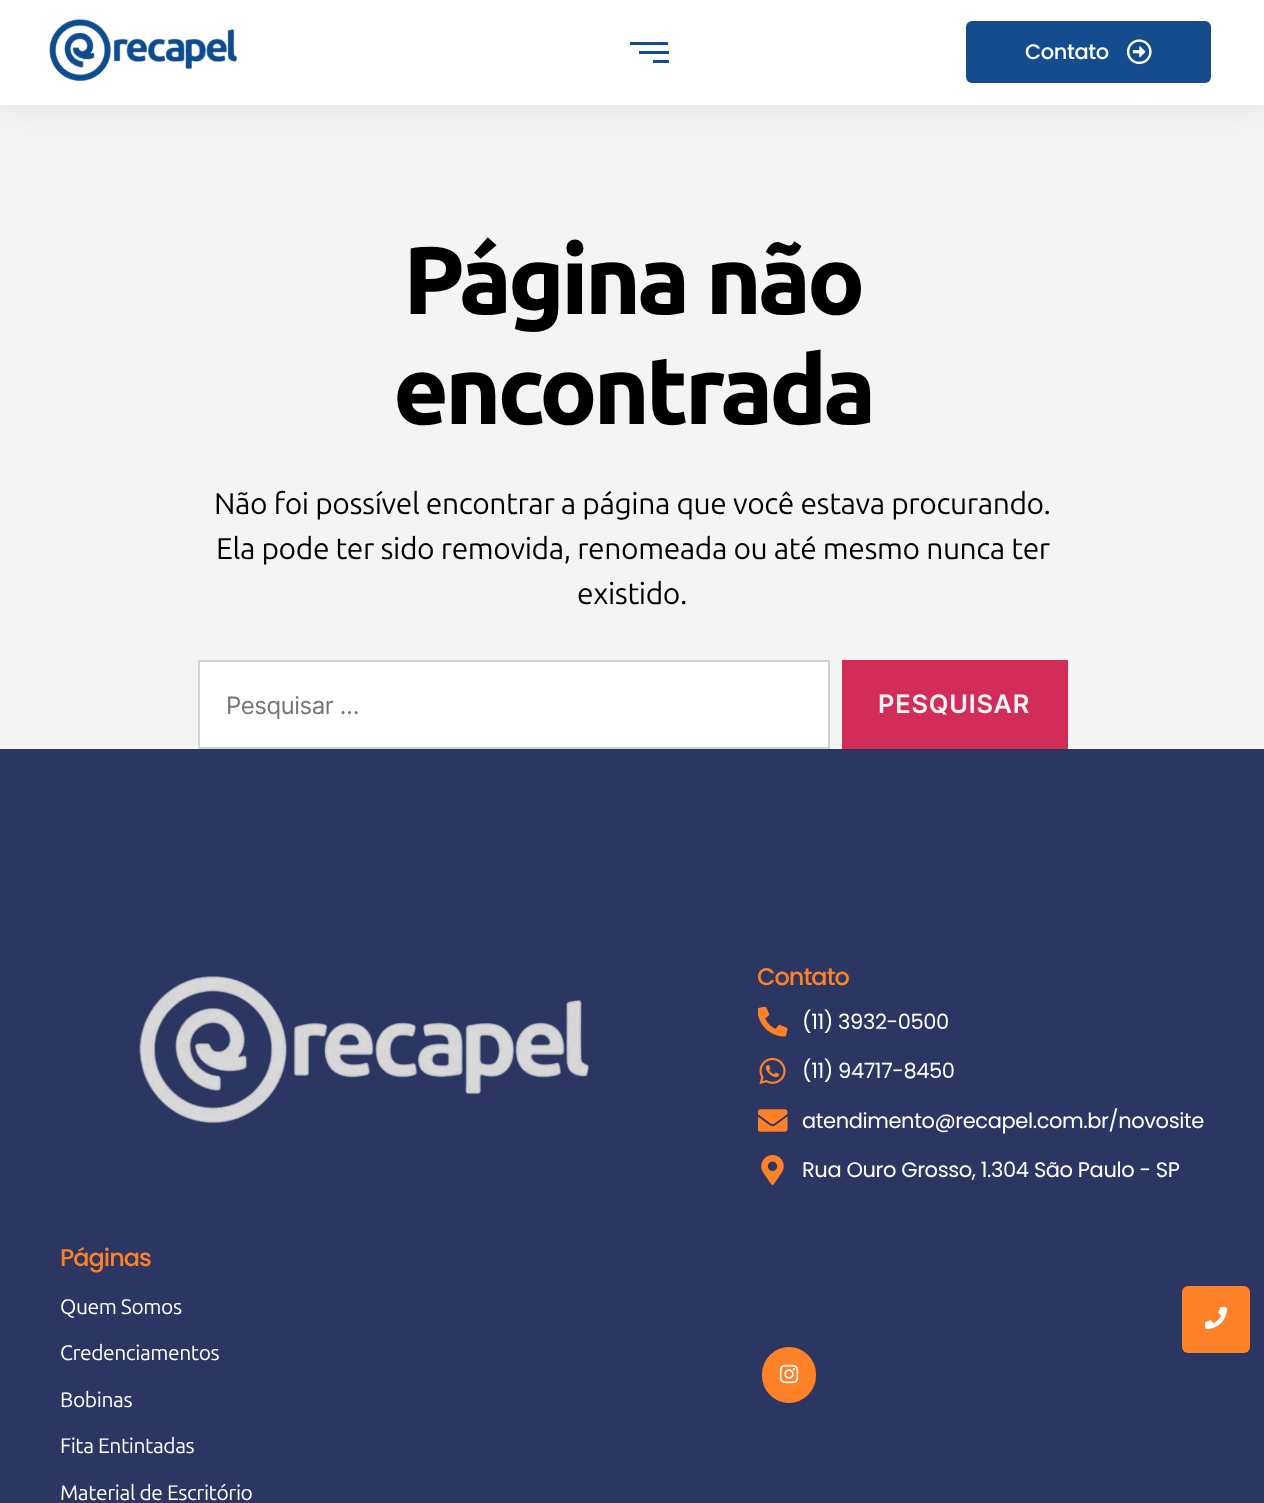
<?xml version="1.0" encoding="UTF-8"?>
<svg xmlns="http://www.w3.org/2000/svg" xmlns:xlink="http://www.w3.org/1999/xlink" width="1264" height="1503">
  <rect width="100%" height="100%" fill="#f4f4f4" />
  <rect width="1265" height="105" fill="#cbcbcb" fill-opacity="0.5" filter="blur(15px)" />
  <rect width="1264" height="105" fill="#ffffff" />
  <image x="49" y="19" width="189" height="63" xlink:href="image1.png" />
  <rect x="630" y="42" width="38" height="3" fill="#144c8d" />
  <rect x="639" y="51" width="30" height="3" fill="#144c8d" />
  <rect x="653" y="60" width="16" height="3" fill="#144c8d" />
  <rect x="966" y="21" width="245" height="62" rx="6" fill="#144c8d" />
  <image x="1127" y="39" width="25" height="26" xlink:href="image2.png" />
  <rect x="199" y="661" width="630" height="87" fill="#ffffff" stroke="#d3d3d3" stroke-width="2" />
  <rect x="842" y="660" width="226" height="89" fill="#d22c58" />
  <rect y="749" width="1264" height="754" fill="#2c3662" />
  <image x="139" y="976" width="450" height="148" xlink:href="image3.png" />
  <image x="758" y="1007" width="30" height="30" xlink:href="image4.png" />
  <image x="759" y="1057" width="27" height="28" xlink:href="image5.png" />
  <image x="758" y="1109" width="30" height="23" xlink:href="image6.png" />
  <image x="761" y="1155" width="23" height="30" xlink:href="image7.png" />
  <rect x="762" y="1347" width="54" height="56" rx="27" fill="#fd8127" />
  <image x="779" y="1364" width="20" height="20" xlink:href="image8.png" />
  <rect x="1182" y="1286" width="68" height="67" rx="6" fill="#fd8127" />
  <image x="1205" y="1307" width="22" height="22" xlink:href="image9.png" />
  <text x="1025" y="59" style="font-family: Poppins; font-size: 21px; font-weight: 500; letter-spacing: -0.4px; fill: #ffffff">Contato</text>
  <text x="403" y="314" style="font-family: Ubuntu; font-size: 96px; font-weight: 800; letter-spacing: -4px; fill: #000000">Página não</text>
  <text x="393" y="424" style="font-family: Ubuntu; font-size: 96px; font-weight: 800; letter-spacing: -4px; fill: #000000">encontrada</text>
  <text x="214" y="514" style="font-family: Ubuntu; font-size: 30px; letter-spacing: -0.4px; fill: #000000">Não foi possível encontrar a página que você estava procurando.</text>
  <text x="216" y="559" style="font-family: Ubuntu; font-size: 30px; letter-spacing: -0.4px; fill: #000000">Ela pode ter sido removida, renomeada ou até mesmo nunca ter</text>
  <text x="577" y="604" style="font-family: Ubuntu; font-size: 30px; letter-spacing: -0.4px; fill: #000000">existido.</text>
  <text x="226" y="714" style="font-family: Inter; font-size: 24px; letter-spacing: -0.4px; fill: #757575">Pesquisar …</text>
  <text x="878" y="713" style="font-family: Inter; font-size: 25.5px; font-weight: 600; letter-spacing: 0.75px; fill: #f4f4f4">PESQUISAR</text>
  <text x="757" y="985" style="font-family: Poppins; font-size: 24px; font-weight: 500; letter-spacing: -1px; fill: #fd8127">Contato</text>
  <text x="802" y="1029" style="font-family: Poppins; font-size: 21px; letter-spacing: -0.4px; fill: #ffffff">(11) 3932-0500</text>
  <text x="802" y="1078" style="font-family: Poppins; font-size: 21px; letter-spacing: -0.4px; fill: #ffffff">(11) 94717-8450</text>
  <text x="802" y="1128" style="font-family: Poppins; font-size: 21px; letter-spacing: -0.4px; fill: #ffffff">atendimento@recapel.com.br/novosite</text>
  <text x="802" y="1177" style="font-family: Poppins; font-size: 21px; letter-spacing: -0.4px; fill: #ffffff">Rua Ouro Grosso, 1.304 São Paulo - SP</text>
  <text x="60" y="1266" style="font-family: Poppins; font-size: 24px; font-weight: 500; letter-spacing: -1px; fill: #fd8127">Páginas</text>
  <text x="60" y="1314" style="font-family: Ubuntu; font-size: 21px; letter-spacing: -0.4px; fill: #ffffff">Quem Somos</text>
  <text x="60" y="1360" style="font-family: Ubuntu; font-size: 21px; letter-spacing: -0.4px; fill: #ffffff">Credenciamentos</text>
  <text x="60" y="1407" style="font-family: Ubuntu; font-size: 21px; letter-spacing: -0.4px; fill: #ffffff">Bobinas</text>
  <text x="60" y="1453" style="font-family: Ubuntu; font-size: 21px; letter-spacing: -0.4px; fill: #ffffff">Fita Entintadas</text>
  <text x="60" y="1500" style="font-family: Ubuntu; font-size: 21px; letter-spacing: -0.4px; fill: #ffffff">Material de Escritório</text>
</svg>
